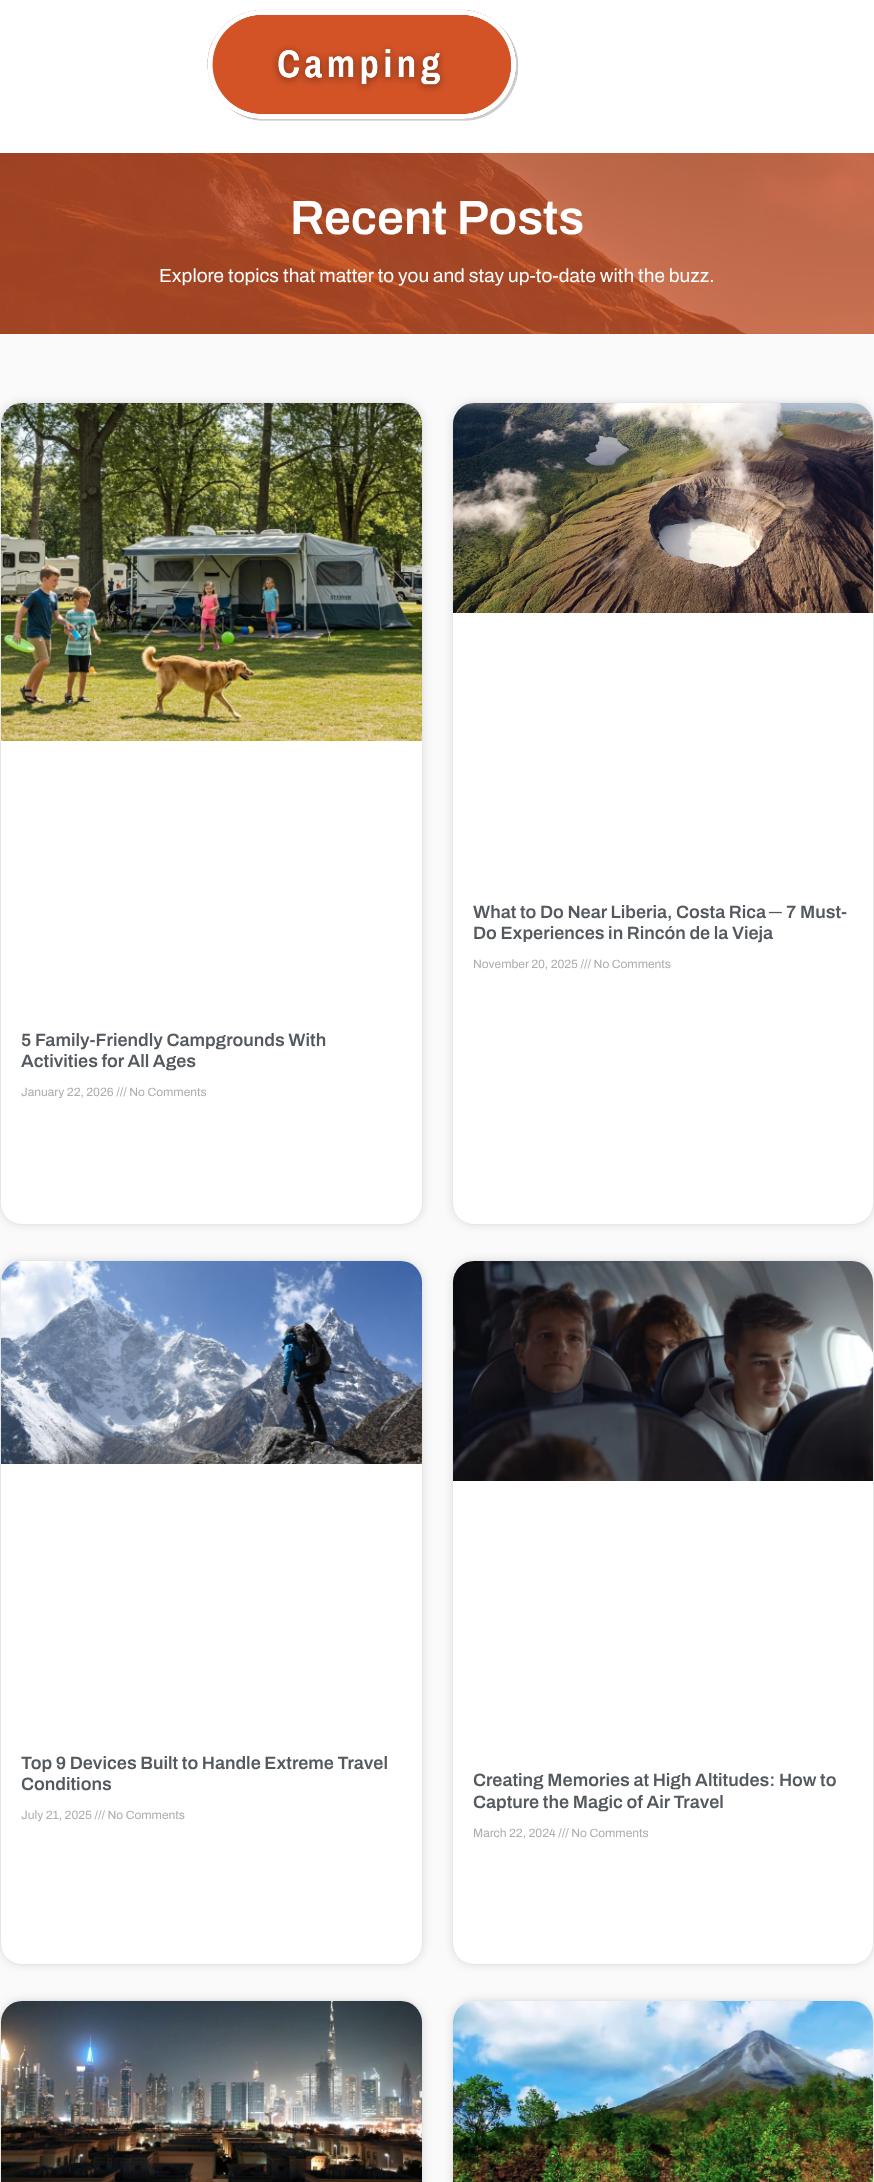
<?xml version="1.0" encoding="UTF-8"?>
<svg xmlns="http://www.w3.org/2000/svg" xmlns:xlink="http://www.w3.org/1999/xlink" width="874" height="2182">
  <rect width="100%" height="100%" fill="#fafafa" />
  <rect width="874" height="153" fill="#ffffff" />
  <image x="207" y="9" width="312" height="112" xlink:href="image1.png" />
  <image x="0" y="153" width="874" height="181" xlink:href="image2.png" />
  <rect x="452" y="402" width="422" height="823" rx="22" fill="#000000" fill-opacity="0.11" filter="blur(5px)" />
  <rect x="452" y="402" width="422" height="823" rx="22" fill="#ffffff" />
  <rect x="452.5" y="402.5" width="421" height="822" rx="21.5" fill="none" stroke="#1a1212" stroke-opacity="0.1" />
  <image x="453" y="403" width="420" height="210" xlink:href="image3.png" />
  <rect y="402" width="423" height="823" rx="22" fill="#000000" fill-opacity="0.11" filter="blur(5px)" />
  <rect y="402" width="423" height="823" rx="22" fill="#ffffff" />
  <rect x="0.5" y="402.5" width="422" height="822" rx="21.5" fill="none" stroke="#1a1212" stroke-opacity="0.1" />
  <image x="1" y="403" width="421" height="338" xlink:href="image4.png" />
  <rect y="1260" width="423" height="705" rx="22" fill="#000000" fill-opacity="0.11" filter="blur(5px)" />
  <rect y="1260" width="423" height="705" rx="22" fill="#ffffff" />
  <rect x="0.5" y="1260.5" width="422" height="704" rx="21.5" fill="none" stroke="#1a1212" stroke-opacity="0.1" />
  <image x="1" y="1261" width="421" height="203" xlink:href="image5.png" />
  <rect x="452" y="1260" width="422" height="705" rx="22" fill="#000000" fill-opacity="0.11" filter="blur(5px)" />
  <rect x="452" y="1260" width="422" height="705" rx="22" fill="#ffffff" />
  <rect x="452.5" y="1260.5" width="421" height="704" rx="21.5" fill="none" stroke="#1a1212" stroke-opacity="0.1" />
  <image x="453" y="1261" width="420" height="220" xlink:href="image6.png" />
  <rect y="2000" width="423" height="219" rx="22" fill="#000000" fill-opacity="0.11" filter="blur(5px)" />
  <rect y="2000" width="423" height="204" rx="22" fill="#ffffff" />
  <rect x="0.5" y="2000.5" width="422" height="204" rx="21.5" fill="none" stroke="#1a1212" stroke-opacity="0.1" />
  <image x="1" y="2001" width="421" height="181" xlink:href="image7.png" />
  <rect x="452" y="2000" width="422" height="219" rx="22" fill="#000000" fill-opacity="0.11" filter="blur(5px)" />
  <rect x="452" y="2000" width="422" height="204" rx="22" fill="#ffffff" />
  <rect x="452.5" y="2000.5" width="421" height="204" rx="21.5" fill="none" stroke="#1a1212" stroke-opacity="0.1" />
  <image x="453" y="2001" width="420" height="181" xlink:href="image8.png" />
  <text x="290" y="234" style="font-family: Archivo; font-size: 48px; font-weight: 600; fill: #ffffff">Recent Posts</text>
  <text x="159" y="282" style="font-family: Archivo; font-size: 19px; fill: #ffffff">Explore topics that matter to you and stay up-to-date with the buzz.</text>
  <text x="473" y="918" style="font-family: Archivo; font-size: 18px; font-weight: 600; fill: #54595f">What to Do Near Liberia, Costa Rica</text>
  <text x="769" y="918" style="font-family: Liberation Sans; font-size: 18px; font-weight: bold; fill: #54595f">─</text>
  <text x="786" y="918" style="font-family: Archivo; font-size: 18px; font-weight: 600; fill: #54595f">7 Must-</text>
  <text x="473" y="939" style="font-family: Archivo; font-size: 18px; font-weight: 600; fill: #54595f">Do Experiences in Rincón de la Vieja</text>
  <text x="473" y="968" style="font-family: Archivo; font-size: 12px; fill: #adadad">November 20, 2025 /// No Comments</text>
  <text x="21" y="1046" style="font-family: Archivo; font-size: 18px; font-weight: 600; fill: #54595f">5 Family-Friendly Campgrounds With</text>
  <text x="21" y="1067" style="font-family: Archivo; font-size: 18px; font-weight: 600; fill: #54595f">Activities for All Ages</text>
  <text x="21" y="1096" style="font-family: Archivo; font-size: 12px; fill: #adadad">January 22, 2026 /// No Comments</text>
  <text x="21" y="1769" style="font-family: Archivo; font-size: 18px; font-weight: 600; fill: #54595f">Top 9 Devices Built to Handle Extreme Travel</text>
  <text x="21" y="1790" style="font-family: Archivo; font-size: 18px; font-weight: 600; fill: #54595f">Conditions</text>
  <text x="21" y="1819" style="font-family: Archivo; font-size: 12px; fill: #adadad">July 21, 2025 /// No Comments</text>
  <text x="473" y="1786" style="font-family: Archivo; font-size: 18px; font-weight: 600; fill: #54595f">Creating Memories at High Altitudes: How to</text>
  <text x="473" y="1808" style="font-family: Archivo; font-size: 18px; font-weight: 600; fill: #54595f">Capture the Magic of Air Travel</text>
  <text x="473" y="1837" style="font-family: Archivo; font-size: 12px; fill: #adadad">March 22, 2024 /// No Comments</text>
</svg>
